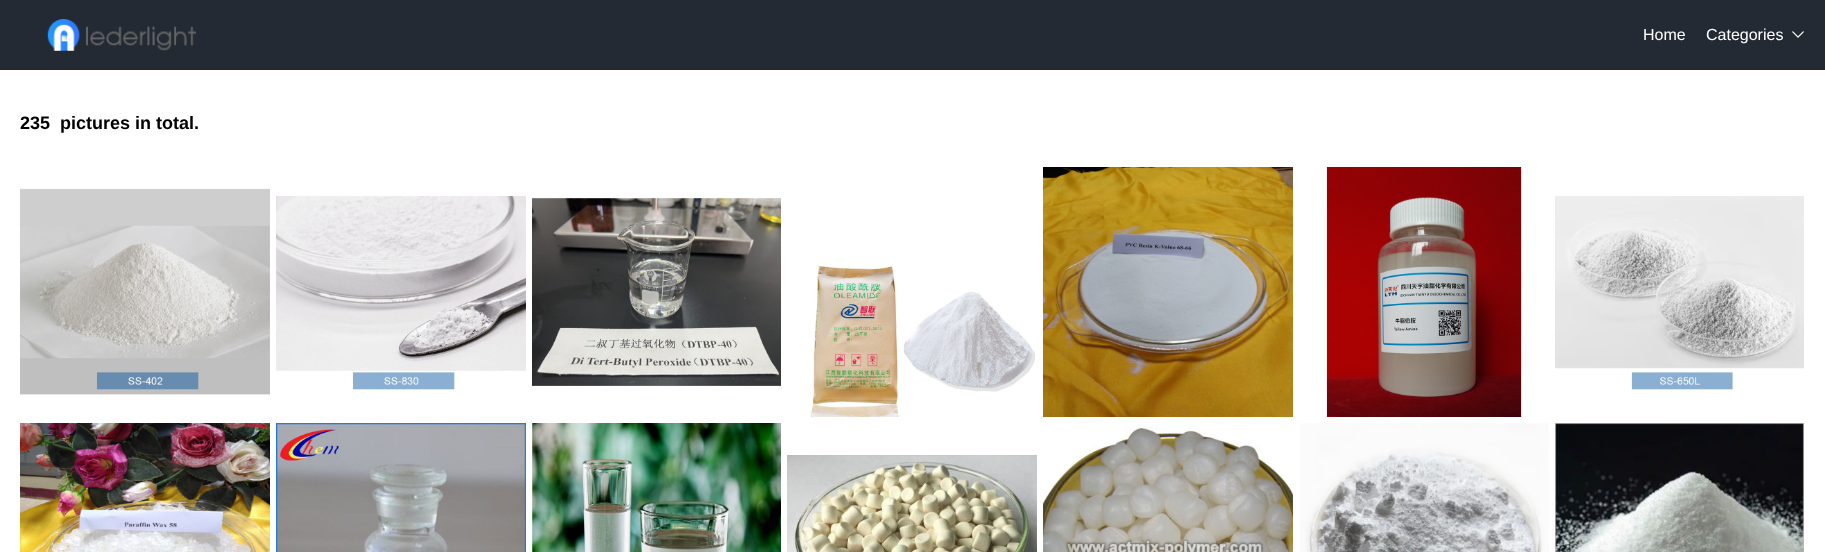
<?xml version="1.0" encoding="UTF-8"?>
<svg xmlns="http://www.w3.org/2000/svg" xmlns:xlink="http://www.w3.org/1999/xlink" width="1825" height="552">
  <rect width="100%" height="100%" fill="#ffffff" />
  <rect width="1825" height="70" fill="#232a34" />
  <image x="47" y="19" width="149" height="32" xlink:href="image1.png" />
  <image x="1792" y="31" width="12" height="7" xlink:href="image2.png" />
  <image x="20" y="188" width="250" height="207" xlink:href="image3.png" />
  <image x="276" y="196" width="250" height="194" xlink:href="image4.png" />
  <image x="532" y="196" width="249" height="190" xlink:href="image5.png" />
  <image x="810" y="265" width="225" height="152" xlink:href="image6.png" />
  <image x="1043" y="167" width="250" height="250" xlink:href="image7.png" />
  <image x="1326" y="167" width="196" height="250" xlink:href="image8.png" />
  <image x="1555" y="196" width="249" height="194" xlink:href="image9.png" />
  <image x="20" y="423" width="250" height="129" xlink:href="image10.png" />
  <image x="276" y="423" width="250" height="129" xlink:href="image11.png" />
  <image x="532" y="423" width="249" height="129" xlink:href="image12.png" />
  <image x="787" y="455" width="250" height="97" xlink:href="image13.png" />
  <image x="1043" y="427" width="250" height="125" xlink:href="image14.png" />
  <image x="1300" y="423" width="249" height="129" xlink:href="image15.png" />
  <image x="1555" y="423" width="249" height="129" xlink:href="image16.png" />
  <text x="1643" y="40" style="font-family: Liberation Sans; font-size: 16px; fill: #ffffff">Home</text>
  <text x="1706" y="40" style="font-family: Liberation Sans; font-size: 16px; fill: #ffffff">Categories</text>
  <text x="20" y="129" style="font-family: Liberation Sans; font-size: 18px; font-weight: bold; fill: #000000">235</text>
  <text x="60" y="129" style="font-family: Liberation Sans; font-size: 18px; font-weight: bold; fill: #000000">pictures in total.</text>
</svg>
